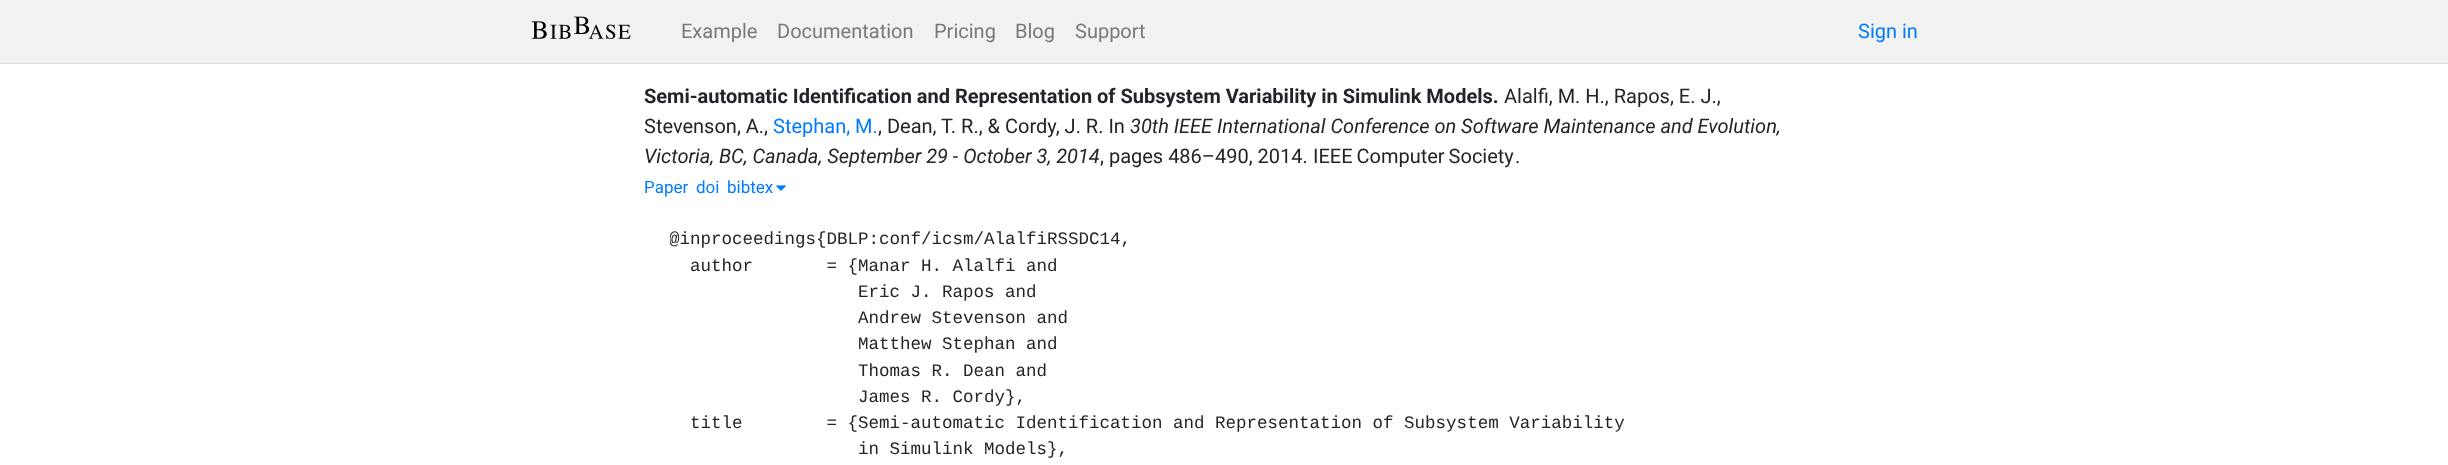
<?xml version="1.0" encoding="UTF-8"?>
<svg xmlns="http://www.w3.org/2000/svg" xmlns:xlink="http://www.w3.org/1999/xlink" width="2448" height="465">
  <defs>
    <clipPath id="clip1"><rect x="670" y="228" width="1110" height="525" /></clipPath>
  </defs>
  <rect width="100%" height="100%" fill="#ffffff" />
  <rect width="2448" height="63" fill="#f2f2f2" />
  <rect y="63" width="2448" height="1" fill="#dddddd" />
  <image x="531" y="16" width="100" height="23" xlink:href="image1.png" />
  <image x="776" y="185" width="10" height="6" xlink:href="image2.png" />
  <text x="681" y="38" style="font-family: Roboto; font-size: 20px; fill: #797979">Example</text>
  <text x="777" y="38" style="font-family: Roboto; font-size: 20px; fill: #797979">Documentation</text>
  <text x="934" y="38" style="font-family: Roboto; font-size: 20px; fill: #797979">Pricing</text>
  <text x="1015" y="38" style="font-family: Roboto; font-size: 20px; fill: #797979">Blog</text>
  <text x="1075" y="38" style="font-family: Roboto; font-size: 20px; fill: #797979">Support</text>
  <text x="1858" y="38" style="font-family: Roboto; font-size: 20px; fill: #007bff">Sign in</text>
  <text x="644" y="103" style="font-family: Roboto; font-size: 20px; font-weight: bold; fill: #212529">Semi-automatic Identification and Representation of Subsystem Variability in Simulink Models.</text>
  <text x="1504" y="103" style="font-family: Roboto; font-size: 20px; fill: #212529">Alalfi, M. H., Rapos, E. J.,</text>
  <text x="644" y="133" style="font-family: Roboto; font-size: 20px; fill: #212529">Stevenson, A.,</text>
  <text x="773" y="133" style="font-family: Roboto; font-size: 20px; fill: #007bff">Stephan, M.</text>
  <text x="878" y="133" style="font-family: Roboto; font-size: 20px; fill: #212529">, Dean, T. R., &amp; Cordy, J. R. In</text>
  <text x="1130" y="133" style="font-family: Roboto; font-size: 20px; font-style: italic; fill: #212529">30th IEEE International Conference on Software Maintenance and Evolution,</text>
  <text x="644" y="163" style="font-family: Roboto; font-size: 20px; font-style: italic; fill: #212529">Victoria, BC, Canada, September 29 - October 3, 2014</text>
  <text x="1100" y="163" style="font-family: Roboto; font-size: 20px; fill: #212529">, pages 486–490, 2014.</text>
  <text x="1313" y="163" word-spacing="-1" style="font-family: Roboto; font-size: 20px; fill: #212529">IEEE Computer Society</text>
  <text x="1515" y="163" style="font-family: Roboto; font-size: 20px; fill: #212529">.</text>
  <text x="644" y="193" style="font-family: Roboto; font-size: 17px; fill: #007bff">Paper</text>
  <text x="696" y="193" style="font-family: Roboto; font-size: 17px; fill: #007bff">doi</text>
  <text x="727" y="193" style="font-family: Roboto; font-size: 17px; fill: #007bff">bibtex</text>
  <g clip-path="url(#clip1)">
    <text x="669" y="244" style="font-family: Liberation Mono; font-size: 17.5px; fill: #212529">@inproceedings{DBLP:conf/icsm/AlalfiRSSDC14,</text>
  </g>
  <text x="690" y="271" style="font-family: Liberation Mono; font-size: 17.5px; fill: #212529" xml:space="preserve">author       = {Manar H. Alalfi and</text>
  <text x="858" y="297" style="font-family: Liberation Mono; font-size: 17.5px; fill: #212529">Eric J. Rapos and</text>
  <text x="858" y="323" style="font-family: Liberation Mono; font-size: 17.5px; fill: #212529">Andrew Stevenson and</text>
  <text x="858" y="349" style="font-family: Liberation Mono; font-size: 17.5px; fill: #212529">Matthew Stephan and</text>
  <text x="858" y="376" style="font-family: Liberation Mono; font-size: 17.5px; fill: #212529">Thomas R. Dean and</text>
  <text x="858" y="402" style="font-family: Liberation Mono; font-size: 17.5px; fill: #212529">James R. Cordy},</text>
  <text x="690" y="428" style="font-family: Liberation Mono; font-size: 17.5px; fill: #212529" xml:space="preserve">title        = {Semi-automatic Identification and Representation of Subsystem Variability</text>
  <text x="858" y="454" style="font-family: Liberation Mono; font-size: 17.5px; fill: #212529">in Simulink Models},</text>
</svg>
